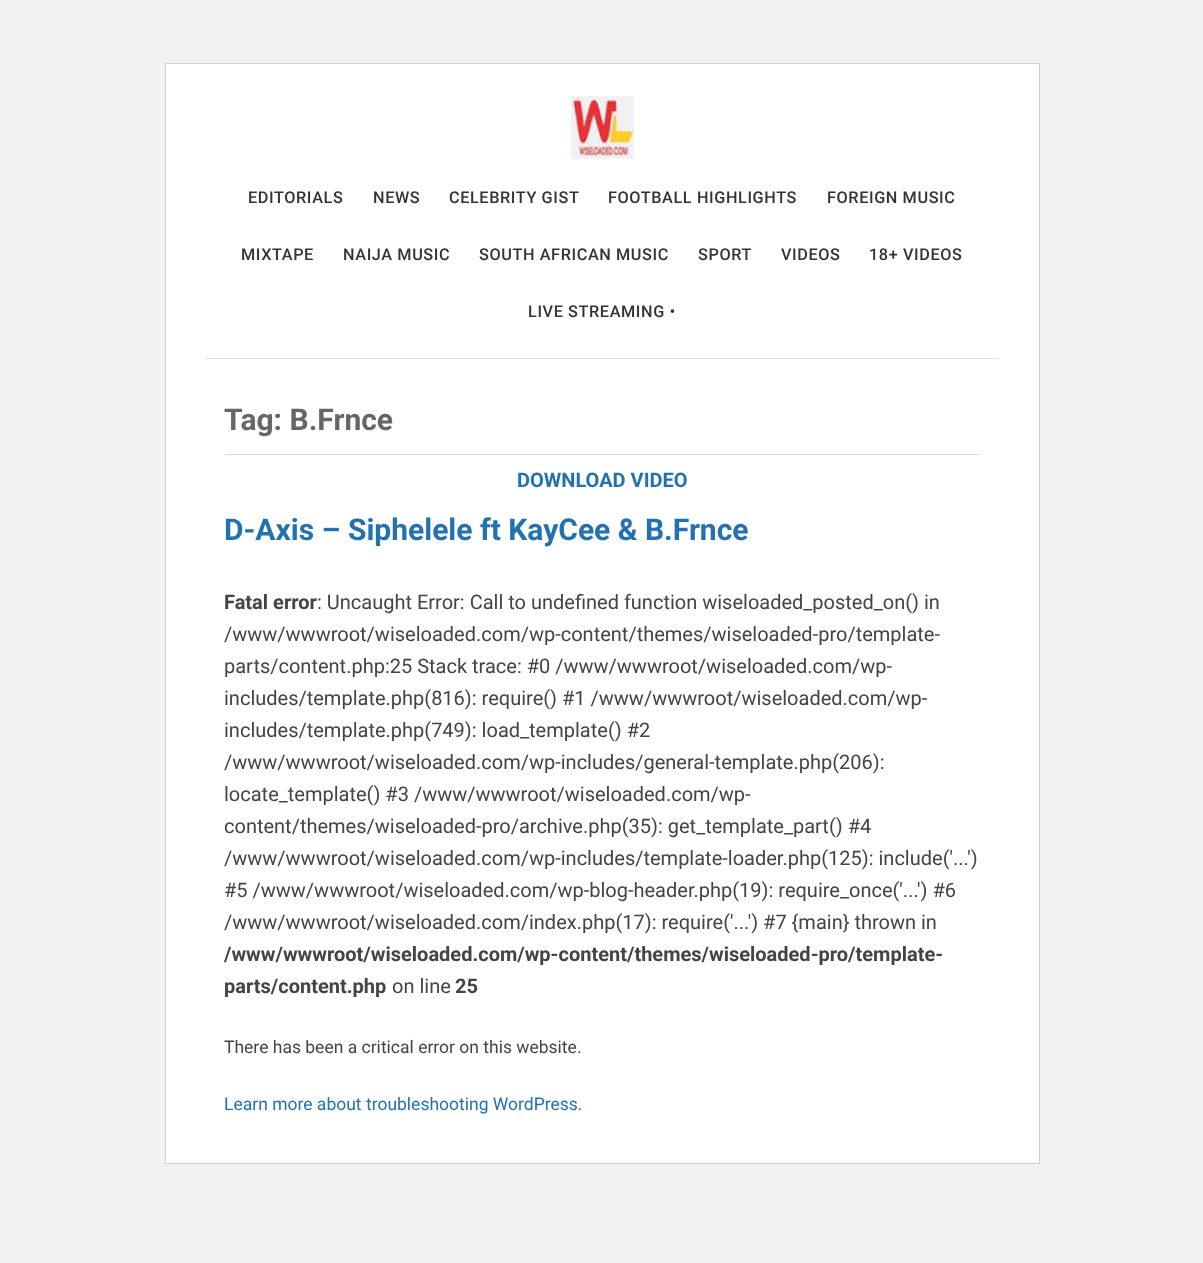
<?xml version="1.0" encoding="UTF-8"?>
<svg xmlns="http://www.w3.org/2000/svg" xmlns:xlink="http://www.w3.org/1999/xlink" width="1203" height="1263">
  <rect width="100%" height="100%" fill="#f1f1f1" />
  <rect x="165.5" y="63.5" width="874" height="1100" fill="#ffffff" stroke="#ccd0d4" />
  <rect x="206" y="358" width="793" height="1" fill="#e0e0e0" />
  <image x="571" y="96" width="63" height="63" xlink:href="image1.png" />
  <rect x="225" y="454" width="755" height="1" fill="#dadada" />
  <text x="248" y="203" style="font-family: Roboto; font-size: 16.25px; font-weight: 500; letter-spacing: 0.6px; fill: #333333">EDITORIALS</text>
  <text x="373" y="203" style="font-family: Roboto; font-size: 16.25px; font-weight: 500; letter-spacing: 0.6px; fill: #333333">NEWS</text>
  <text x="449" y="203" style="font-family: Roboto; font-size: 16.25px; font-weight: 500; letter-spacing: 0.6px; fill: #333333">CELEBRITY GIST</text>
  <text x="608" y="203" style="font-family: Roboto; font-size: 16.25px; font-weight: 500; letter-spacing: 0.6px; fill: #333333">FOOTBALL HIGHLIGHTS</text>
  <text x="827" y="203" style="font-family: Roboto; font-size: 16.25px; font-weight: 500; letter-spacing: 0.6px; fill: #333333">FOREIGN MUSIC</text>
  <text x="241" y="260" style="font-family: Roboto; font-size: 16.25px; font-weight: 500; letter-spacing: 0.6px; fill: #333333">MIXTAPE</text>
  <text x="343" y="260" style="font-family: Roboto; font-size: 16.25px; font-weight: 500; letter-spacing: 0.6px; fill: #333333">NAIJA MUSIC</text>
  <text x="479" y="260" style="font-family: Roboto; font-size: 16.25px; font-weight: 500; letter-spacing: 0.6px; fill: #333333">SOUTH AFRICAN MUSIC</text>
  <text x="698" y="260" style="font-family: Roboto; font-size: 16.25px; font-weight: 500; letter-spacing: 0.6px; fill: #333333">SPORT</text>
  <text x="781" y="260" style="font-family: Roboto; font-size: 16.25px; font-weight: 500; letter-spacing: 0.6px; fill: #333333">VIDEOS</text>
  <text x="869" y="260" style="font-family: Roboto; font-size: 16.25px; font-weight: 500; letter-spacing: 0.6px; fill: #333333">18+ VIDEOS</text>
  <text x="528" y="317" style="font-family: Roboto; font-size: 16.25px; font-weight: 500; letter-spacing: 0.6px; fill: #333333">LIVE STREAMING •</text>
  <text x="224" y="430" style="font-family: Roboto; font-size: 30px; font-weight: bold; fill: #666666">Tag: B.Frnce</text>
  <text x="517" y="487" style="font-family: Roboto; font-size: 20px; font-weight: bold; fill: #2271b1">DOWNLOAD VIDEO</text>
  <text x="224" y="540" style="font-family: Roboto; font-size: 30px; font-weight: bold; fill: #2271b1">D-Axis – Siphelele ft KayCee &amp; B.Frnce</text>
  <text x="224" y="609" style="font-family: Roboto; font-size: 20px; font-weight: bold; fill: #444444">Fatal error</text>
  <text x="317" y="609" style="font-family: Roboto; font-size: 20px; fill: #444444">: Uncaught Error: Call to undefined function wiseloaded_posted_on() in</text>
  <text x="224" y="641" style="font-family: Roboto; font-size: 20px; fill: #444444">/www/wwwroot/wiseloaded.com/wp-content/themes/wiseloaded-pro/template-</text>
  <text x="224" y="673" style="font-family: Roboto; font-size: 20px; fill: #444444">parts/content.php:25 Stack trace: #0 /www/wwwroot/wiseloaded.com/wp-</text>
  <text x="224" y="705" style="font-family: Roboto; font-size: 20px; fill: #444444">includes/template.php(816): require() #1 /www/wwwroot/wiseloaded.com/wp-</text>
  <text x="224" y="737" style="font-family: Roboto; font-size: 20px; fill: #444444">includes/template.php(749): load_template() #2</text>
  <text x="224" y="769" style="font-family: Roboto; font-size: 20px; fill: #444444">/www/wwwroot/wiseloaded.com/wp-includes/general-template.php(206):</text>
  <text x="224" y="801" style="font-family: Roboto; font-size: 20px; fill: #444444">locate_template() #3 /www/wwwroot/wiseloaded.com/wp-</text>
  <text x="224" y="833" style="font-family: Roboto; font-size: 20px; fill: #444444">content/themes/wiseloaded-pro/archive.php(35): get_template_part() #4</text>
  <text x="224" y="865" style="font-family: Roboto; font-size: 20px; fill: #444444">/www/wwwroot/wiseloaded.com/wp-includes/template-loader.php(125): include('...')</text>
  <text x="224" y="897" style="font-family: Roboto; font-size: 20px; fill: #444444">#5 /www/wwwroot/wiseloaded.com/wp-blog-header.php(19): require_once('...') #6</text>
  <text x="224" y="929" style="font-family: Roboto; font-size: 20px; fill: #444444">/www/wwwroot/wiseloaded.com/index.php(17): require('...') #7 {main} thrown in</text>
  <text x="224" y="961" style="font-family: Roboto; font-size: 20px; font-weight: bold; fill: #444444">/www/wwwroot/wiseloaded.com/wp-content/themes/wiseloaded-pro/template-</text>
  <text x="224" y="993" style="font-family: Roboto; font-size: 20px; font-weight: bold; fill: #444444">parts/content.php</text>
  <text x="392" y="993" style="font-family: Roboto; font-size: 20px; fill: #444444">on line</text>
  <text x="455" y="993" style="font-family: Roboto; font-size: 20px; font-weight: bold; fill: #444444">25</text>
  <text x="224" y="1053" style="font-family: Roboto; font-size: 17.5px; fill: #444444">There has been a critical error on this website.</text>
  <text x="224" y="1110" style="font-family: Roboto; font-size: 17.5px; fill: #2271b1">Learn more about troubleshooting WordPress.</text>
</svg>
